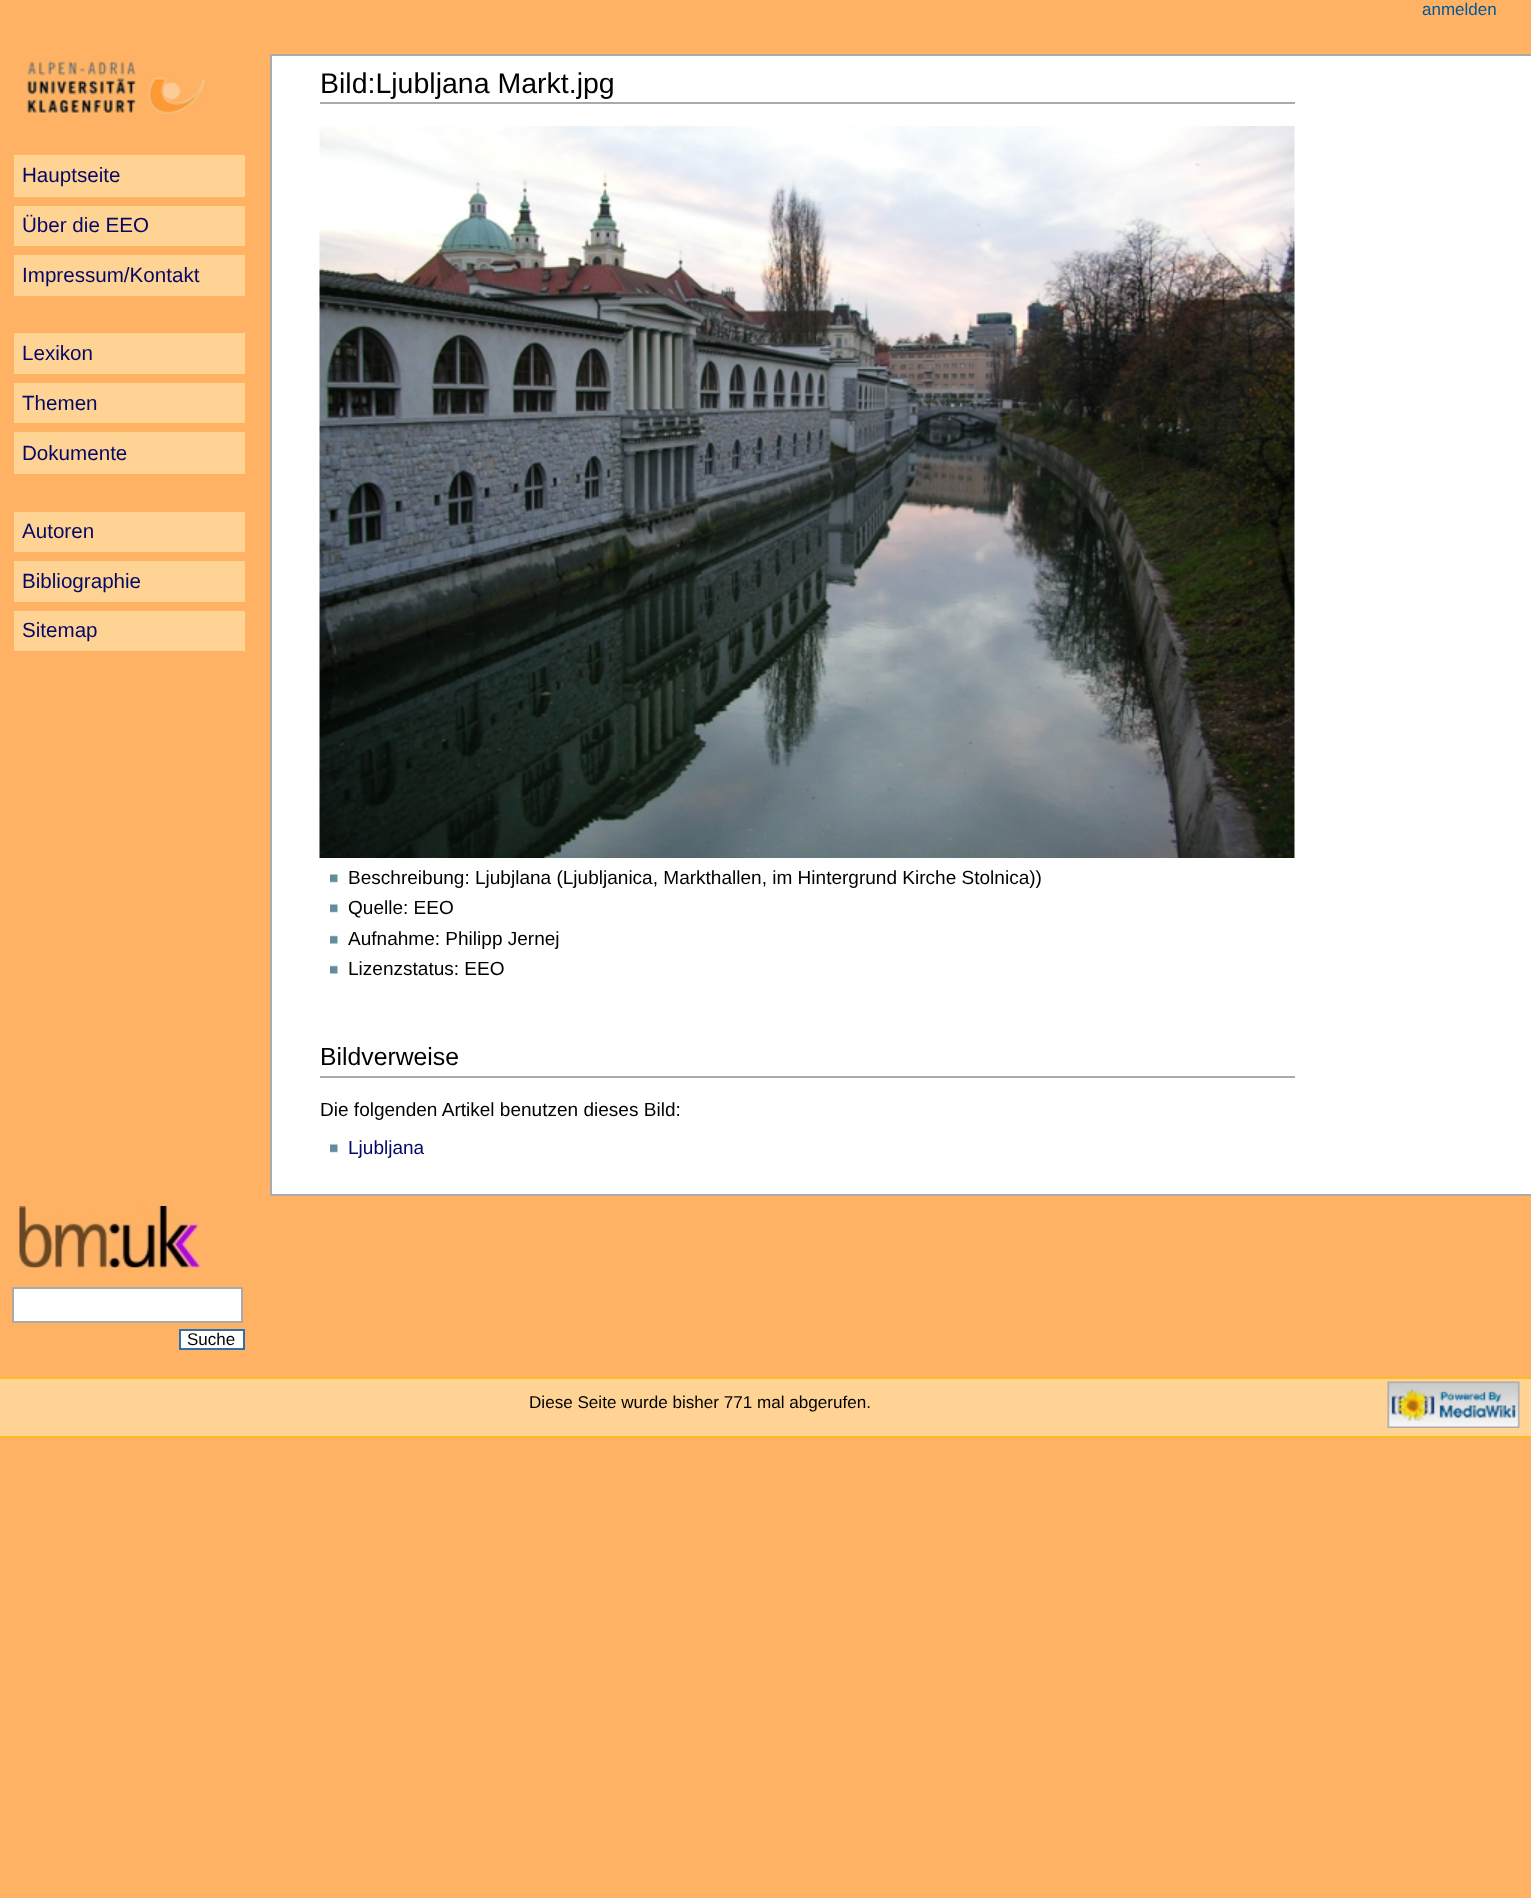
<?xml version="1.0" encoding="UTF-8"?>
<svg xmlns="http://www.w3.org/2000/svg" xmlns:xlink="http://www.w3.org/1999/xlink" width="1531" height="1898">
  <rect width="100%" height="100%" fill="#ffb263" />
  <image x="26" y="61" width="179" height="53" xlink:href="image1.png" />
  <rect x="14" y="155" width="231" height="42" fill="#ffd394" />
  <rect x="14" y="206" width="231" height="40" fill="#ffd394" />
  <rect x="14" y="255" width="231" height="41" fill="#ffd394" />
  <rect x="14" y="333" width="231" height="41" fill="#ffd394" />
  <rect x="14" y="383" width="231" height="40" fill="#ffd394" />
  <rect x="14" y="432" width="231" height="42" fill="#ffd394" />
  <rect x="14" y="512" width="231" height="40" fill="#ffd394" />
  <rect x="14" y="561" width="231" height="41" fill="#ffd394" />
  <rect x="14" y="611" width="231" height="40" fill="#ffd394" />
  <image x="19" y="1206" width="181" height="62" xlink:href="image2.png" />
  <rect x="13" y="1288" width="229" height="34" fill="#ffffff" stroke="#aaaaaa" stroke-width="2" />
  <rect x="180" y="1330" width="64" height="19" fill="#ffffff" stroke="#2f6fab" stroke-width="2" />
  <rect x="272" y="56" width="1259" height="1138" fill="#ffffff" />
  <rect x="270" y="54" width="1261" height="2" fill="#aaaaaa" />
  <rect x="270" y="1194" width="1261" height="2" fill="#aaaaaa" />
  <rect x="270" y="54" width="2" height="1142" fill="#aaaaaa" />
  <rect x="320" y="102" width="975" height="2" fill="#aaaaaa" />
  <image x="319" y="126" width="976" height="732" xlink:href="image3.png" />
  <image x="330" y="874" width="8" height="9" xlink:href="image4.png" />
  <image x="330" y="904" width="8" height="9" xlink:href="image4.png" />
  <image x="330" y="935" width="8" height="9" xlink:href="image5.png" />
  <image x="330" y="965" width="8" height="9" xlink:href="image5.png" />
  <rect x="320" y="1076" width="975" height="2" fill="#aaaaaa" />
  <image x="330" y="1144" width="8" height="9" xlink:href="image4.png" />
  <rect y="1379" width="1531" height="57" fill="#ffd394" />
  <rect y="1377" width="1531" height="2" fill="#fabd23" />
  <rect y="1436" width="1531" height="2" fill="#fabd23" />
  <image x="1387" y="1381" width="133" height="47" xlink:href="image6.png" />
  <text x="1422" y="15" style="font-family: Liberation Sans; font-size: 17px; fill: #005896">anmelden</text>
  <text x="22" y="182" style="font-family: Liberation Sans; font-size: 20.6px; fill: #040864">Hauptseite</text>
  <text x="22" y="232" style="font-family: Liberation Sans; font-size: 20.6px; fill: #040864">Über die EEO</text>
  <text x="22" y="282" style="font-family: Liberation Sans; font-size: 20.6px; fill: #040864">Impressum/Kontakt</text>
  <text x="22" y="360" style="font-family: Liberation Sans; font-size: 20.6px; fill: #040864">Lexikon</text>
  <text x="22" y="410" style="font-family: Liberation Sans; font-size: 20.6px; fill: #040864">Themen</text>
  <text x="22" y="460" style="font-family: Liberation Sans; font-size: 20.6px; fill: #040864">Dokumente</text>
  <text x="22" y="538" style="font-family: Liberation Sans; font-size: 20.6px; fill: #040864">Autoren</text>
  <text x="22" y="588" style="font-family: Liberation Sans; font-size: 20.6px; fill: #040864">Bibliographie</text>
  <text x="22" y="637" style="font-family: Liberation Sans; font-size: 20.6px; fill: #040864">Sitemap</text>
  <text x="187" y="1345" style="font-family: Liberation Sans; font-size: 17px; fill: #000000">Suche</text>
  <text x="320" y="93" style="font-family: Liberation Sans; font-size: 28.5px; fill: #000000">Bild:Ljubljana Markt.jpg</text>
  <text x="348" y="884" style="font-family: Liberation Sans; font-size: 19.05px; fill: #000000">Beschreibung: Ljubjlana (Ljubljanica, Markthallen, im Hintergrund Kirche Stolnica))</text>
  <text x="348" y="914" style="font-family: Liberation Sans; font-size: 19.05px; fill: #000000">Quelle: EEO</text>
  <text x="348" y="945" style="font-family: Liberation Sans; font-size: 19.05px; fill: #000000">Aufnahme: Philipp Jernej</text>
  <text x="348" y="975" style="font-family: Liberation Sans; font-size: 19.05px; fill: #000000">Lizenzstatus: EEO</text>
  <text x="320" y="1065" style="font-family: Liberation Sans; font-size: 24.75px; fill: #000000">Bildverweise</text>
  <text x="320" y="1116" style="font-family: Liberation Sans; font-size: 19.05px; fill: #000000">Die folgenden Artikel benutzen dieses Bild:</text>
  <text x="348" y="1154" style="font-family: Liberation Sans; font-size: 19.05px; fill: #040864">Ljubljana</text>
  <text x="529" y="1408" style="font-family: Liberation Sans; font-size: 17.1px; fill: #000000">Diese Seite wurde bisher 771 mal abgerufen.</text>
</svg>
